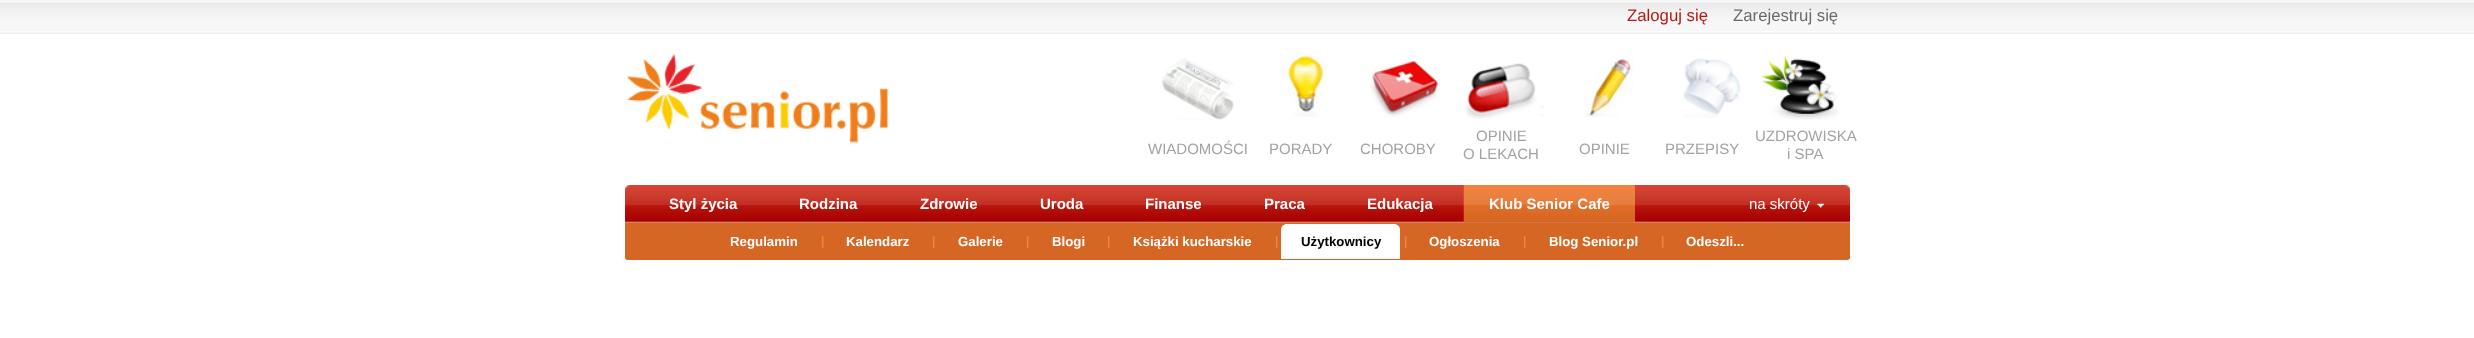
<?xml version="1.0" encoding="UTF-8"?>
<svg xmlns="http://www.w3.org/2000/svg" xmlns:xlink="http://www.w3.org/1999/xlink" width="2474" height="338">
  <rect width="100%" height="100%" fill="#ffffff" />
  <image x="0" y="0" width="2474" height="34" xlink:href="image1.png" />
  <image x="627" y="53" width="261" height="90" xlink:href="image2.png" />
  <image x="1161" y="58" width="73" height="62" xlink:href="image3.png" />
  <image x="1287" y="53" width="39" height="64" xlink:href="image4.png" />
  <image x="1370" y="61" width="69" height="56" xlink:href="image5.png" />
  <image x="1465" y="53" width="79" height="66" xlink:href="image6.png" />
  <image x="1585" y="55" width="49" height="62" xlink:href="image7.png" />
  <image x="1683" y="58" width="58" height="60" xlink:href="image8.png" />
  <image x="1761" y="56" width="78" height="64" xlink:href="image9.png" />
  <image x="625" y="185" width="1225" height="38" xlink:href="image10.png" />
  <image x="625" y="222" width="1225" height="38" xlink:href="image13.png" />
  <image x="1463" y="185" width="172" height="38" xlink:href="image11.png" />
  <image x="1817" y="203" width="7" height="5" xlink:href="image12.png" />
  <path d="M 1287 224 h 107 c 3.5 0 6 2.5 6 6 v 29 h -119 v -29 c 0 -3.5 2.5 -6 6 -6 z" fill="#ffffff" />
  <text x="1627" y="21" style="font-family: Liberation Sans; font-size: 16.75px; fill: #b81a12">Zaloguj się</text>
  <text x="1733" y="21" style="font-family: Liberation Sans; font-size: 16.75px; fill: #6a6a6a">Zarejestruj się</text>
  <text x="1148" y="154" style="font-family: Liberation Sans; font-size: 15px; fill: #a3a3a3">WIADOMOŚCI</text>
  <text x="1269" y="154" style="font-family: Liberation Sans; font-size: 15px; fill: #a3a3a3">PORADY</text>
  <text x="1360" y="154" style="font-family: Liberation Sans; font-size: 15px; fill: #a3a3a3">CHOROBY</text>
  <text x="1476" y="141" style="font-family: Liberation Sans; font-size: 15px; fill: #a3a3a3">OPINIE</text>
  <text x="1463" y="159" style="font-family: Liberation Sans; font-size: 15px; fill: #a3a3a3">O LEKACH</text>
  <text x="1579" y="154" style="font-family: Liberation Sans; font-size: 15px; fill: #a3a3a3">OPINIE</text>
  <text x="1665" y="154" style="font-family: Liberation Sans; font-size: 15px; fill: #a3a3a3">PRZEPISY</text>
  <text x="1755" y="141" style="font-family: Liberation Sans; font-size: 15px; fill: #a3a3a3">UZDROWISKA</text>
  <text x="1787" y="159" style="font-family: Liberation Sans; font-size: 15px; fill: #a3a3a3">i SPA</text>
  <text x="669" y="209" style="font-family: Liberation Sans; font-size: 15px; font-weight: bold; fill: #ffffff">Styl życia</text>
  <text x="799" y="209" style="font-family: Liberation Sans; font-size: 15px; font-weight: bold; fill: #ffffff">Rodzina</text>
  <text x="920" y="209" style="font-family: Liberation Sans; font-size: 15px; font-weight: bold; fill: #ffffff">Zdrowie</text>
  <text x="1040" y="209" style="font-family: Liberation Sans; font-size: 15px; font-weight: bold; fill: #ffffff">Uroda</text>
  <text x="1145" y="209" style="font-family: Liberation Sans; font-size: 15px; font-weight: bold; fill: #ffffff">Finanse</text>
  <text x="1264" y="209" style="font-family: Liberation Sans; font-size: 15px; font-weight: bold; fill: #ffffff">Praca</text>
  <text x="1367" y="209" style="font-family: Liberation Sans; font-size: 15px; font-weight: bold; fill: #ffffff">Edukacja</text>
  <text x="1749" y="209" style="font-family: Liberation Sans; font-size: 15px; fill: #ffffff">na skróty</text>
  <text x="1489" y="209" style="font-family: Liberation Sans; font-size: 15px; font-weight: bold; fill: #ffffff">Klub Senior Cafe</text>
  <text x="730" y="246" style="font-family: Liberation Sans; font-size: 13.25px; font-weight: bold; fill: #ffffff">Regulamin</text>
  <text x="821" y="245" style="font-family: Liberation Sans; font-size: 12px; font-weight: bold; fill: #ed8546">|</text>
  <text x="846" y="246" style="font-family: Liberation Sans; font-size: 13.25px; font-weight: bold; fill: #ffffff">Kalendarz</text>
  <text x="932" y="245" style="font-family: Liberation Sans; font-size: 12px; font-weight: bold; fill: #ed8546">|</text>
  <text x="958" y="246" style="font-family: Liberation Sans; font-size: 13.25px; font-weight: bold; fill: #ffffff">Galerie</text>
  <text x="1026" y="245" style="font-family: Liberation Sans; font-size: 12px; font-weight: bold; fill: #ed8546">|</text>
  <text x="1052" y="246" style="font-family: Liberation Sans; font-size: 13.25px; font-weight: bold; fill: #ffffff">Blogi</text>
  <text x="1107" y="245" style="font-family: Liberation Sans; font-size: 12px; font-weight: bold; fill: #ed8546">|</text>
  <text x="1133" y="246" style="font-family: Liberation Sans; font-size: 13.25px; font-weight: bold; fill: #ffffff">Książki kucharskie</text>
  <text x="1275" y="245" style="font-family: Liberation Sans; font-size: 12px; font-weight: bold; fill: #ed8546">|</text>
  <text x="1301" y="246" style="font-family: Liberation Sans; font-size: 13.25px; font-weight: bold; fill: #000000">Użytkownicy</text>
  <text x="1404" y="245" style="font-family: Liberation Sans; font-size: 12px; font-weight: bold; fill: #ed8546">|</text>
  <text x="1429" y="246" style="font-family: Liberation Sans; font-size: 13.25px; font-weight: bold; fill: #ffffff">Ogłoszenia</text>
  <text x="1523" y="245" style="font-family: Liberation Sans; font-size: 12px; font-weight: bold; fill: #ed8546">|</text>
  <text x="1549" y="246" style="font-family: Liberation Sans; font-size: 13.25px; font-weight: bold; fill: #ffffff">Blog Senior.pl</text>
  <text x="1661" y="245" style="font-family: Liberation Sans; font-size: 12px; font-weight: bold; fill: #ed8546">|</text>
  <text x="1686" y="246" style="font-family: Liberation Sans; font-size: 13.25px; font-weight: bold; fill: #ffffff">Odeszli...</text>
</svg>
